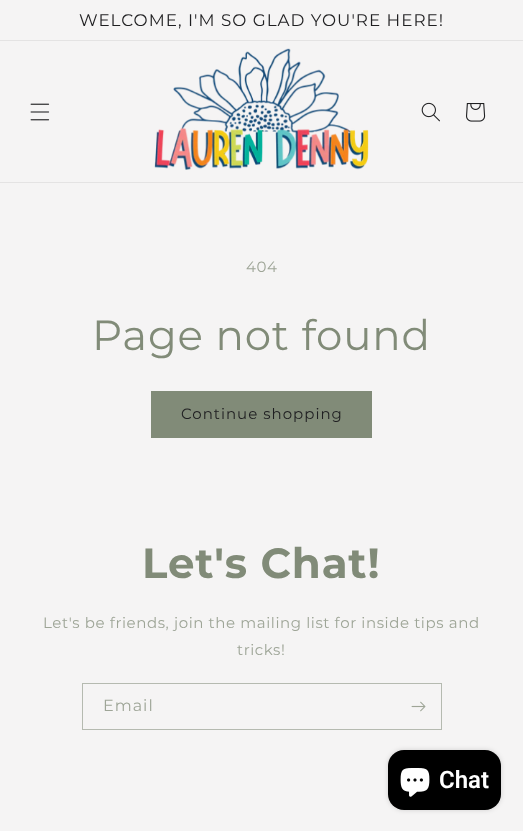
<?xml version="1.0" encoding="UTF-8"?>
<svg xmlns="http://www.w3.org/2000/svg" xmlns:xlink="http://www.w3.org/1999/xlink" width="523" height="831">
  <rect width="100%" height="100%" fill="#f5f4f4" />
  <rect y="40" width="523" height="1" fill="#e4e3e3" />
  <rect y="182" width="523" height="1" fill="#e4e3e3" />
  <image x="30" y="103" width="20" height="18" xlink:href="image1.png" />
  <image x="154" y="48" width="215" height="122" xlink:href="image2.png" />
  <image x="421" y="102" width="19" height="20" xlink:href="image3.png" />
  <image x="466" y="103" width="20" height="19" xlink:href="image4.png" />
  <rect x="151" y="391" width="221" height="47" fill="#818b78" />
  <rect x="82.5" y="683.5" width="359" height="46" fill="none" stroke="#b5bab0" />
  <image x="411" y="701" width="15" height="11" xlink:href="image5.png" />
  <rect x="388" y="750" width="113" height="60" rx="16" fill="#000000" fill-opacity="0.15" filter="blur(2.5px)" />
  <rect x="388" y="750" width="113" height="60" rx="16" fill="#000000" />
  <image x="400" y="768" width="30" height="29" xlink:href="image6.png" />
  <text x="79" y="26" style="font-family: Montserrat; font-size: 16.8px; letter-spacing: 1px; fill: #1f1f21">WELCOME, I'M SO GLAD YOU'RE HERE!</text>
  <text x="246" y="272" style="font-family: Montserrat; font-size: 15px; letter-spacing: 0.6px; fill: #9ea597">404</text>
  <text x="92" y="350" style="font-family: Montserrat; font-size: 42px; letter-spacing: 0.8px; fill: #818b78">Page not found</text>
  <text x="181" y="419" style="font-family: Montserrat; font-size: 15px; letter-spacing: 1px; fill: #1f1f21">Continue shopping</text>
  <text x="142" y="578" style="font-family: Montserrat; font-size: 42px; font-weight: bold; letter-spacing: 0.8px; fill: #818b78">Let's Chat!</text>
  <text x="43" y="628" style="font-family: Montserrat; font-size: 15px; letter-spacing: 0.6px; fill: #9ea597">Let's be friends, join the mailing list for inside tips and</text>
  <text x="237" y="655" style="font-family: Montserrat; font-size: 15px; letter-spacing: 0.6px; fill: #9ea597">tricks!</text>
  <text x="103" y="711" style="font-family: Montserrat; font-size: 16px; letter-spacing: 1px; fill: #9ea597">Email</text>
  <text x="439" y="788" style="font-family: Roboto; font-size: 24px; font-weight: 600; fill: #ffffff">Chat</text>
</svg>
